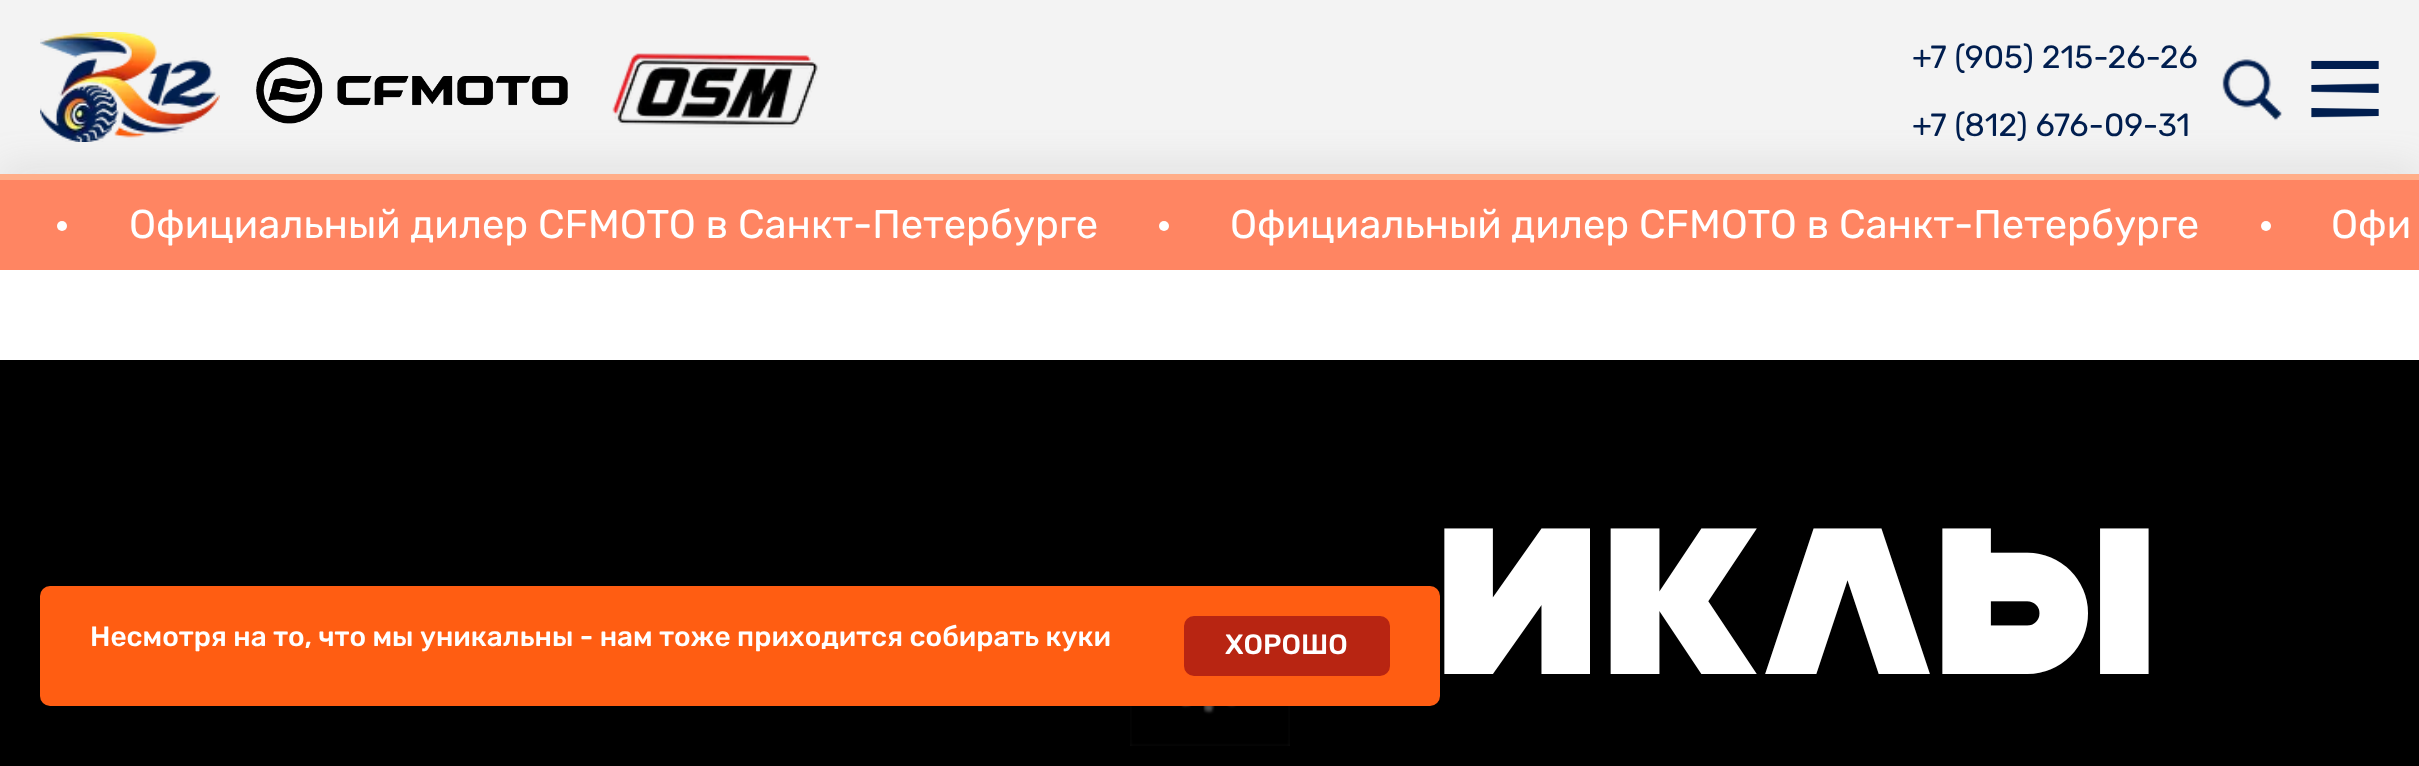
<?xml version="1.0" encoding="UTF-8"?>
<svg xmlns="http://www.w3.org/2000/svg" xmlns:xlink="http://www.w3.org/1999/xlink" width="2419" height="766">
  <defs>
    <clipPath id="clip1"><rect x="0" y="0" width="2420" height="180" /></clipPath>
  </defs>
  <rect width="100%" height="100%" fill="#ffffff" />
  <rect width="2419" height="174" fill="#f3f3f3" />
  <image x="40" y="32" width="180" height="110" xlink:href="image1.png" />
  <rect y="180" width="2419" height="90" fill="#ff8562" />
  <circle cx="62" cy="226" r="5" fill="#ffffff" />
  <circle cx="1164" cy="226" r="5" fill="#ffffff" />
  <circle cx="2266" cy="226" r="5" fill="#ffffff" />
  <g clip-path="url(#clip1)">
    <rect y="178" width="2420" height="6" fill="#7a7a7a" fill-opacity="0.8" filter="blur(20px)" />
  </g>
  <image x="256" y="57" width="312" height="67" xlink:href="image2.png" />
  <image x="612" y="53" width="208" height="75" xlink:href="image3.png" />
  <image x="2222" y="56" width="60" height="65" xlink:href="image4.png" />
  <image x="2311" y="60" width="68" height="58" xlink:href="image5.png" />
  <rect y="174" width="2419" height="6" fill="#ffae89" />
  <rect y="360" width="2419" height="406" fill="#000000" />
  <image x="1130" y="706" width="160" height="40" xlink:href="image6.png" />
  <rect x="40" y="586" width="1400" height="120" rx="10" fill="#000000" fill-opacity="0.4" filter="blur(15px)" />
  <rect x="40" y="586" width="1400" height="120" rx="10" fill="#ff5d12" />
  <rect x="1185" y="617" width="204" height="58" rx="9" fill="#b82512" stroke="#b82512" stroke-width="2" />
  <text x="1912" y="68" style="font-family: Rubik; font-size: 32px; fill: #001e4f">+7 (905) 215-26-26</text>
  <text x="1912" y="136" style="font-family: Rubik; font-size: 32px; fill: #001e4f">+7 (812) 676-09-31</text>
  <text x="129" y="238" style="font-family: Rubik; font-size: 40px; fill: #ffffff">Официальный дилер CFMOTO в Санкт-Петербурге</text>
  <text x="1230" y="238" style="font-family: Rubik; font-size: 40px; fill: #ffffff">Официальный дилер CFMOTO в Санкт-Петербурге</text>
  <text x="2331" y="238" style="font-family: Rubik; font-size: 40px; fill: #ffffff">Офи</text>
  <text x="90" y="646" style="font-family: Rubik; font-size: 28px; font-weight: 500; fill: #ffffff">Несмотря на то, что мы уникальны - нам тоже приходится собирать куки</text>
  <text x="1225" y="654" style="font-family: Rubik; font-size: 28px; font-weight: 500; fill: #ffffff">ХОРОШО</text>
  <text x="1434" y="674" style="font-family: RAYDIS; font-size: 208px; font-weight: bold; fill: #ffffff">ИКЛЫ</text>
</svg>
